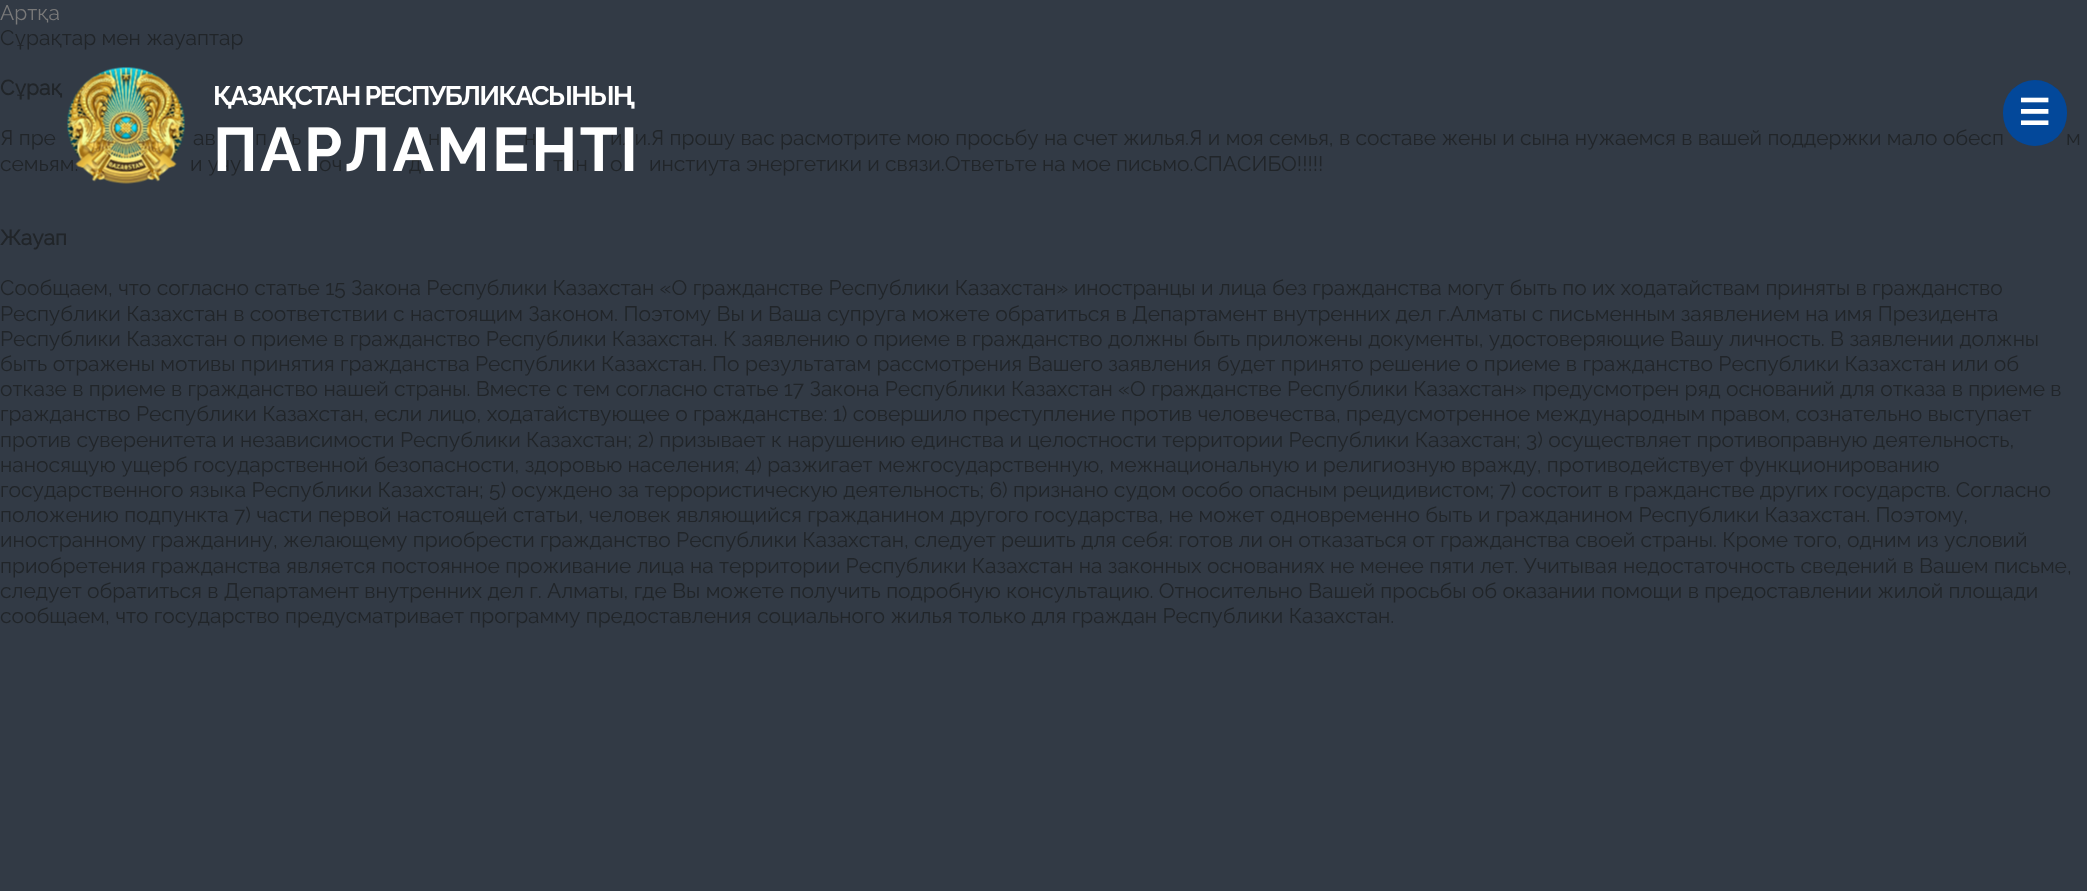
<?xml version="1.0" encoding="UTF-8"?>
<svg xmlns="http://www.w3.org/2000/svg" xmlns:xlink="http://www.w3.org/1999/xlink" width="2087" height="891">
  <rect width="100%" height="100%" fill="#323a45" />
  <rect x="2003" y="80" width="64" height="66" rx="32" fill="#03489a" />
  <text x="0" y="20" style="font-family: Raleway; font-size: 21px; fill: #797979">Артқа</text>
  <text x="0" y="45" style="font-family: Raleway; font-size: 21px; fill: #212529">Сұрақтар мен жауаптар</text>
  <text x="0" y="95" style="font-family: Raleway; font-size: 21px; font-weight: bold; fill: #212529">Сұрақ</text>
  <text x="0" y="145" style="font-family: Raleway; font-size: 21px; fill: #212529">Я пре</text>
  <text x="193" y="145" style="font-family: Raleway; font-size: 21px; fill: #212529">ав</text>
  <text x="255" y="145" style="font-family: Raleway; font-size: 21px; fill: #212529">п</text>
  <text x="291" y="145" style="font-family: Raleway; font-size: 21px; fill: #212529">ь</text>
  <text x="328" y="145" style="font-family: Raleway; font-size: 21px; fill: #212529">,</text>
  <text x="428" y="145" style="font-family: Raleway; font-size: 21px; fill: #212529">н</text>
  <text x="524" y="145" style="font-family: Raleway; font-size: 21px; fill: #212529">н</text>
  <text x="610" y="145" style="font-family: Raleway; font-size: 21px; fill: #212529">или.Я прошу вас расмотрите мою просьбу на счет жилья.Я и моя семья, в составе жены и сына нужаемся в вашей поддержки мало обесп</text>
  <text x="2066" y="145" style="font-family: Raleway; font-size: 21px; fill: #212529">м</text>
  <text x="0" y="171" style="font-family: Raleway; font-size: 21px; fill: #212529">семьям.</text>
  <text x="190" y="171" style="font-family: Raleway; font-size: 21px; fill: #212529">и учу</text>
  <text x="319" y="171" style="font-family: Raleway; font-size: 21px; fill: #212529">оч</text>
  <text x="409" y="171" style="font-family: Raleway; font-size: 21px; fill: #212529">д</text>
  <text x="553" y="171" style="font-family: Raleway; font-size: 21px; fill: #212529">тин</text>
  <text x="610" y="171" style="font-family: Raleway; font-size: 21px; fill: #212529">о</text>
  <text x="649" y="171" style="font-family: Raleway; font-size: 21px; fill: #212529">инстиута энергетики и связи.Ответьте на мое письмо.СПАСИБО!!!!!</text>
  <text x="0" y="245" style="font-family: Raleway; font-size: 21px; font-weight: bold; fill: #212529">Жауап</text>
  <text x="0" y="295" style="font-family: Raleway; font-size: 21px; fill: #212529">Сообщаем, что согласно статье 15 Закона Республики Казахстан «О гражданстве Республики Казахстан» иностранцы и лица без гражданства могут быть по их ходатайствам приняты в гражданство</text>
  <text x="0" y="321" style="font-family: Raleway; font-size: 21px; fill: #212529">Республики Казахстан в соответствии с настоящим Законом. Поэтому Вы и Ваша супруга можете обратиться в Департамент внутренних дел г.Алматы с письменным заявлением на имя Президента</text>
  <text x="0" y="346" style="font-family: Raleway; font-size: 21px; fill: #212529">Республики Казахстан о приеме в гражданство Республики Казахстан. К заявлению о приеме в гражданство должны быть приложены документы, удостоверяющие Вашу личность. В заявлении должны</text>
  <text x="0" y="371" style="font-family: Raleway; font-size: 21px; fill: #212529">быть отражены мотивы принятия гражданства Республики Казахстан. По результатам рассмотрения Вашего заявления будет принято решение о приеме в гражданство Республики Казахстан или об</text>
  <text x="0" y="396" style="font-family: Raleway; font-size: 21px; fill: #212529">отказе в приеме в гражданство нашей страны. Вместе с тем согласно статье 17 Закона Республики Казахстан «О гражданстве Республики Казахстан» предусмотрен ряд оснований для отказа в приеме в</text>
  <text x="0" y="421" style="font-family: Raleway; font-size: 21px; fill: #212529">гражданство Республики Казахстан, если лицо, ходатайствующее о гражданстве: 1) совершило преступление против человечества, предусмотренное международным правом, сознательно выступает</text>
  <text x="0" y="447" style="font-family: Raleway; font-size: 21px; fill: #212529">против суверенитета и независимости Республики Казахстан; 2) призывает к нарушению единства и целостности территории Республики Казахстан; 3) осуществляет противоправную деятельность,</text>
  <text x="0" y="472" style="font-family: Raleway; font-size: 21px; fill: #212529">наносящую ущерб государственной безопасности, здоровью населения; 4) разжигает межгосударственную, межнациональную и религиозную вражду, противодействует функционированию</text>
  <text x="0" y="497" style="font-family: Raleway; font-size: 21px; fill: #212529">государственного языка Республики Казахстан; 5) осуждено за террористическую деятельность; 6) признано судом особо опасным рецидивистом; 7) состоит в гражданстве других государств. Согласно</text>
  <text x="0" y="522" style="font-family: Raleway; font-size: 21px; fill: #212529">положению подпункта 7) части первой настоящей статьи, человек являющийся гражданином другого государства, не может одновременно быть и гражданином Республики Казахстан. Поэтому,</text>
  <text x="0" y="547" style="font-family: Raleway; font-size: 21px; fill: #212529">иностранному гражданину, желающему приобрести гражданство Республики Казахстан, следует решить для себя: готов ли он отказаться от гражданства своей страны. Кроме того, одним из условий</text>
  <text x="0" y="573" style="font-family: Raleway; font-size: 21px; fill: #212529">приобретения гражданства является постоянное проживание лица на территории Республики Казахстан на законных основаниях не менее пяти лет. Учитывая недостаточность сведений в Вашем письме,</text>
  <text x="0" y="598" style="font-family: Raleway; font-size: 21px; fill: #212529">следует обратиться в Департамент внутренних дел г. Алматы, где Вы можете получить подробную консультацию. Относительно Вашей просьбы об оказании помощи в предоставлении жилой площади</text>
  <text x="0" y="623" style="font-family: Raleway; font-size: 21px; fill: #212529">сообщаем, что государство предусматривает программу предоставления социального жилья только для граждан Республики Казахстан.</text>
  <image x="67" y="67" width="118" height="117" xlink:href="image1.png" />
  <image x="215" y="86" width="420" height="86" xlink:href="image2.png" />
  <text x="2018" y="125" style="font-family: DejaVu Sans; font-size: 36px; font-weight: bold; fill: #ffffff">☰</text>
</svg>
